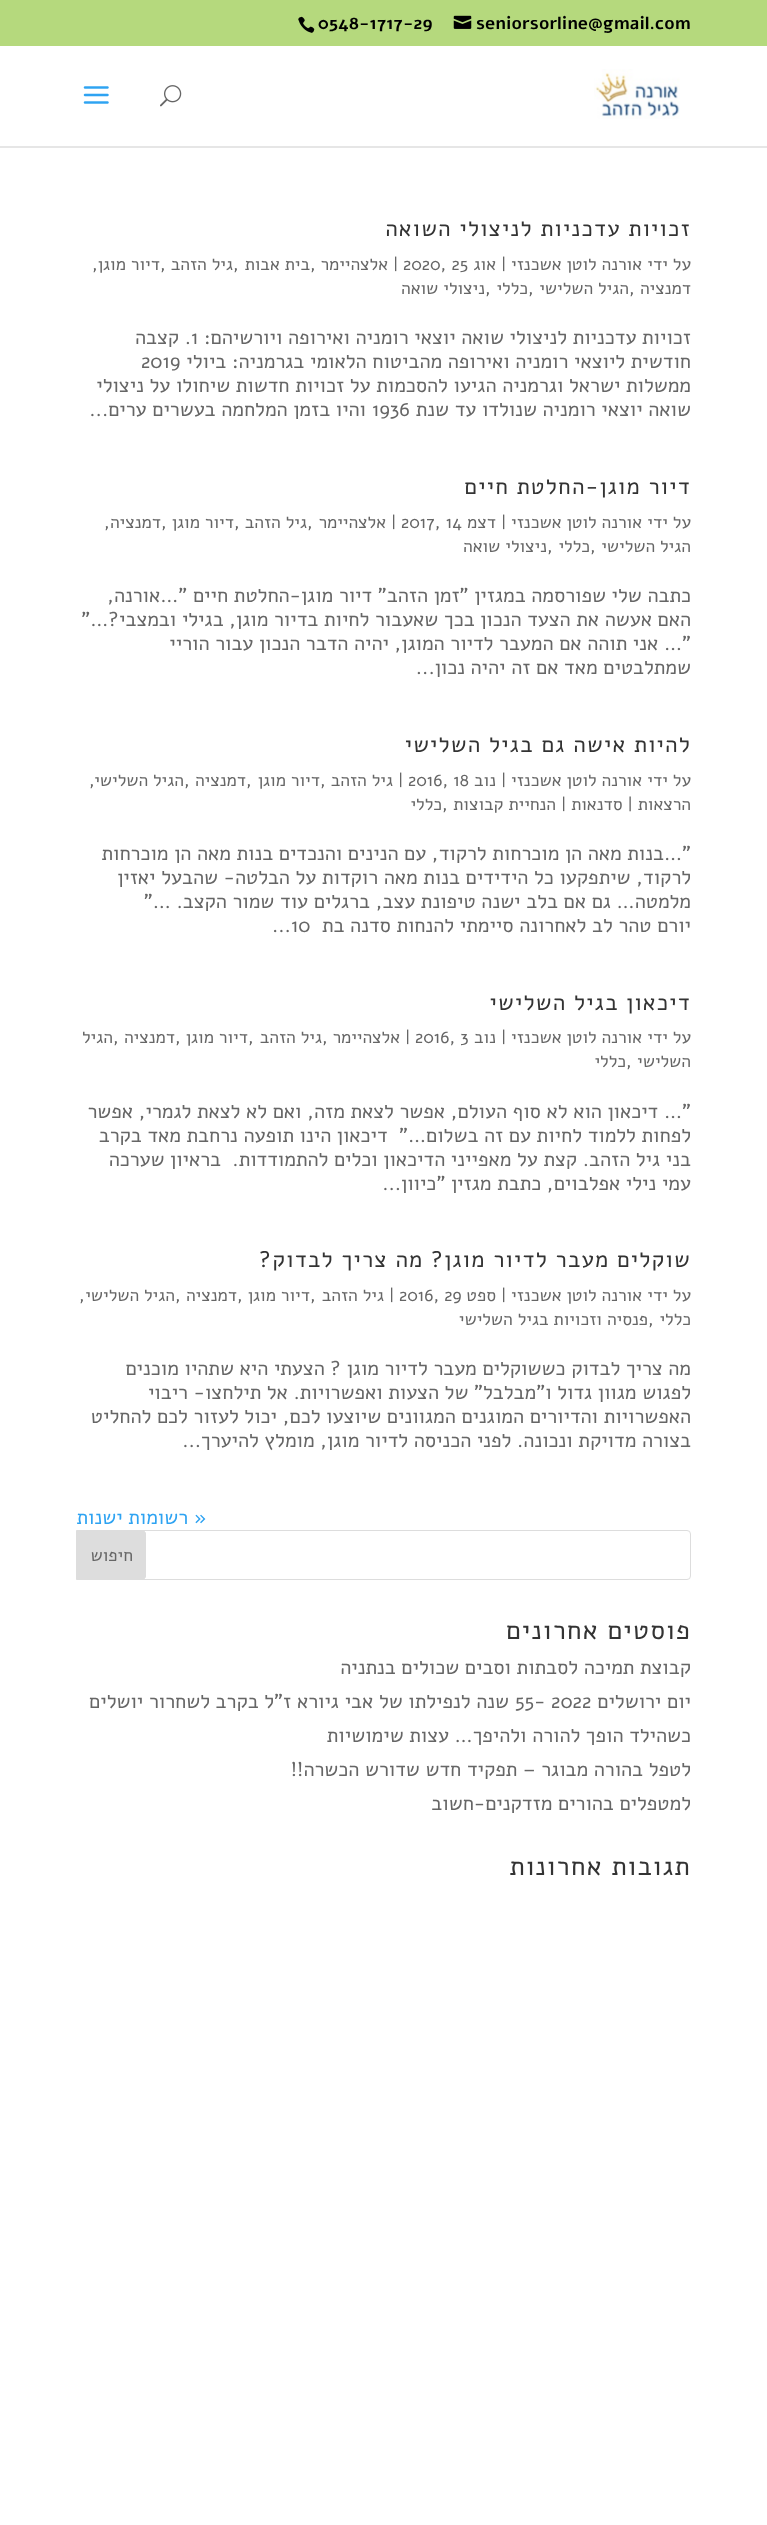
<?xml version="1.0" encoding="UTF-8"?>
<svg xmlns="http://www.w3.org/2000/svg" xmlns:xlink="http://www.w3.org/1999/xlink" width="767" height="2525">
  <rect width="100%" height="100%" fill="#ffffff" />
  <rect width="767" height="46" fill="#b5d97d" />
  <image x="453" y="15" width="19" height="14" xlink:href="image1.png" />
  <image x="298" y="16" width="17" height="17" xlink:href="image2.png" />
  <path d="M 0 146 v 2 h 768 v -100 v 98 z" fill="#e6e6e6" />
  <image x="594" y="69" width="86" height="50" xlink:href="image3.png" />
  <image x="160" y="85" width="22" height="22" xlink:href="image4.png" />
  <image x="83" y="86" width="26" height="18" xlink:href="image5.png" />
  <rect x="76.5" y="1530.5" width="614" height="49" rx="3.5" fill="none" stroke="#dddddd" />
  <path d="M 76.5 1530.5 h 65.5 c 2 0 3.5 1.5 3.5 3.5 v 42 c 0 2 -1.5 3.5 -3.5 3.5 h -65.5 z" fill="#dddddd" stroke="#dddddd" />
  <text x="476" y="29" style="font-family: Alef; font-size: 17.5px; font-weight: bold; fill: #000000">seniorsorline@gmail.com</text>
  <text x="318" y="29" style="font-family: Alef; font-size: 17.5px; font-weight: bold; fill: #000000">0548-1717-29</text>
  <text x="691" y="236" style="font-family: Alef; font-size: 22.5px; letter-spacing: 1.25px; direction: rtl; fill: #333333">זכויות עדכניות לניצולי השואה</text>
  <text x="691" y="270" style="font-family: Alef; font-size: 17.5px; direction: rtl; fill: #666666">על ידי</text>
  <text x="642" y="270" style="font-family: Alef; font-size: 17.5px; direction: rtl; fill: #666666">אורנה לוטן אשכנזי</text>
  <text x="501" y="270" style="font-family: Alef; font-size: 17.5px; fill: #666666">|</text>
  <text x="496" y="270" style="font-family: Alef; font-size: 17.5px; direction: rtl; fill: #666666">אוג</text>
  <text x="403" y="270" style="font-family: Alef; font-size: 17.5px; fill: #666666">2020, 25</text>
  <text x="393" y="270" style="font-family: Alef; font-size: 17.5px; fill: #666666">|</text>
  <text x="388" y="270" style="font-family: Alef; font-size: 17.5px; direction: rtl; fill: #666666">אלצהיימר</text>
  <text x="310" y="270" style="font-family: Alef; font-size: 17.5px; fill: #666666">,</text>
  <text x="310" y="270" style="font-family: Alef; font-size: 17.5px; direction: rtl; fill: #666666">בית אבות</text>
  <text x="233" y="270" style="font-family: Alef; font-size: 17.5px; fill: #666666">,</text>
  <text x="233" y="270" style="font-family: Alef; font-size: 17.5px; direction: rtl; fill: #666666">גיל הזהב</text>
  <text x="160" y="270" style="font-family: Alef; font-size: 17.5px; fill: #666666">,</text>
  <text x="160" y="270" style="font-family: Alef; font-size: 17.5px; direction: rtl; fill: #666666">דיור מוגן</text>
  <text x="92" y="270" style="font-family: Alef; font-size: 17.5px; fill: #666666">,</text>
  <text x="691" y="294" style="font-family: Alef; font-size: 17.5px; direction: rtl; fill: #666666">דמנציה</text>
  <text x="629" y="294" style="font-family: Alef; font-size: 17.5px; fill: #666666">,</text>
  <text x="629" y="294" style="font-family: Alef; font-size: 17.5px; direction: rtl; fill: #666666">הגיל השלישי</text>
  <text x="528" y="294" style="font-family: Alef; font-size: 17.5px; fill: #666666">,</text>
  <text x="528" y="294" style="font-family: Alef; font-size: 17.5px; direction: rtl; fill: #666666">כללי</text>
  <text x="485" y="294" style="font-family: Alef; font-size: 17.5px; fill: #666666">,</text>
  <text x="485" y="294" style="font-family: Alef; font-size: 17.5px; direction: rtl; fill: #666666">ניצולי שואה</text>
  <text x="691" y="344" style="font-family: Alef; font-size: 20px; direction: rtl; fill: #666666">זכויות עדכניות לניצולי שואה יוצאי רומניה ואירופה ויורשיהם:</text>
  <text x="191" y="344" style="font-family: Alef; font-size: 20px; fill: #666666">1</text>
  <text x="191" y="344" style="font-family: Alef; font-size: 20px; direction: rtl; fill: #666666">. קצבה</text>
  <text x="691" y="368" style="font-family: Alef; font-size: 20px; direction: rtl; fill: #666666">חודשית ליוצאי רומניה ואירופה מהביטוח הלאומי בגרמניה: ביולי</text>
  <text x="141" y="368" style="font-family: Alef; font-size: 20px; fill: #666666">2019</text>
  <text x="691" y="392" style="font-family: Alef; font-size: 20px; direction: rtl; fill: #666666">ממשלות ישראל וגרמניה הגיעו להסכמות על זכויות חדשות שיחולו על ניצולי</text>
  <text x="691" y="416" style="font-family: Alef; font-size: 20px; direction: rtl; fill: #666666">שואה יוצאי רומניה שנולדו עד שנת</text>
  <text x="372" y="416" style="font-family: Alef; font-size: 20px; fill: #666666">1936</text>
  <text x="366" y="416" style="font-family: Alef; font-size: 20px; direction: rtl; fill: #666666">והיו בזמן המלחמה בעשרים ערים...</text>
  <text x="691" y="494" style="font-family: Alef; font-size: 22.5px; letter-spacing: 1.25px; direction: rtl; fill: #333333">דיור מוגן-החלטת חיים</text>
  <text x="691" y="528" style="font-family: Alef; font-size: 17.5px; direction: rtl; fill: #666666">על ידי</text>
  <text x="642" y="528" style="font-family: Alef; font-size: 17.5px; direction: rtl; fill: #666666">אורנה לוטן אשכנזי</text>
  <text x="501" y="528" style="font-family: Alef; font-size: 17.5px; fill: #666666">|</text>
  <text x="496" y="528" style="font-family: Alef; font-size: 17.5px; direction: rtl; fill: #666666">דצמ</text>
  <text x="401" y="528" style="font-family: Alef; font-size: 17.5px; fill: #666666">2017, 14</text>
  <text x="391" y="528" style="font-family: Alef; font-size: 17.5px; fill: #666666">|</text>
  <text x="386" y="528" style="font-family: Alef; font-size: 17.5px; direction: rtl; fill: #666666">אלצהיימר</text>
  <text x="307" y="528" style="font-family: Alef; font-size: 17.5px; fill: #666666">,</text>
  <text x="307" y="528" style="font-family: Alef; font-size: 17.5px; direction: rtl; fill: #666666">גיל הזהב</text>
  <text x="234" y="528" style="font-family: Alef; font-size: 17.5px; fill: #666666">,</text>
  <text x="234" y="528" style="font-family: Alef; font-size: 17.5px; direction: rtl; fill: #666666">דיור מוגן</text>
  <text x="161" y="528" style="font-family: Alef; font-size: 17.5px; fill: #666666">,</text>
  <text x="161" y="528" style="font-family: Alef; font-size: 17.5px; direction: rtl; fill: #666666">דמנציה</text>
  <text x="104" y="528" style="font-family: Alef; font-size: 17.5px; fill: #666666">,</text>
  <text x="691" y="552" style="font-family: Alef; font-size: 17.5px; direction: rtl; fill: #666666">הגיל השלישי</text>
  <text x="590" y="552" style="font-family: Alef; font-size: 17.5px; fill: #666666">,</text>
  <text x="590" y="552" style="font-family: Alef; font-size: 17.5px; direction: rtl; fill: #666666">כללי</text>
  <text x="547" y="552" style="font-family: Alef; font-size: 17.5px; fill: #666666">,</text>
  <text x="547" y="552" style="font-family: Alef; font-size: 17.5px; direction: rtl; fill: #666666">ניצולי שואה</text>
  <text x="691" y="602" style="font-family: Alef; font-size: 20px; direction: rtl; fill: #666666">כתבה שלי שפורסמה במגזין "זמן הזהב" דיור מוגן-החלטת חיים "…אורנה,</text>
  <text x="691" y="626" style="font-family: Alef; font-size: 20px; direction: rtl; fill: #666666">האם אעשה את הצעד הנכון בכך שאעבור לחיות בדיור מוגן, בגילי ובמצבי?…"</text>
  <text x="691" y="650" style="font-family: Alef; font-size: 20px; direction: rtl; fill: #666666">"… אני תוהה אם המעבר לדיור המוגן, יהיה הדבר הנכון עבור הוריי</text>
  <text x="691" y="674" style="font-family: Alef; font-size: 20px; direction: rtl; fill: #666666">שמתלבטים מאד אם זה יהיה נכון...</text>
  <text x="691" y="752" style="font-family: Alef; font-size: 22.5px; letter-spacing: 1.25px; direction: rtl; fill: #333333">להיות אישה גם בגיל השלישי</text>
  <text x="691" y="786" style="font-family: Alef; font-size: 17.5px; direction: rtl; fill: #666666">על ידי</text>
  <text x="642" y="786" style="font-family: Alef; font-size: 17.5px; direction: rtl; fill: #666666">אורנה לוטן אשכנזי</text>
  <text x="501" y="786" style="font-family: Alef; font-size: 17.5px; fill: #666666">|</text>
  <text x="496" y="786" style="font-family: Alef; font-size: 17.5px; direction: rtl; fill: #666666">נוב</text>
  <text x="408" y="786" style="font-family: Alef; font-size: 17.5px; fill: #666666">2016, 18</text>
  <text x="398" y="786" style="font-family: Alef; font-size: 17.5px; fill: #666666">|</text>
  <text x="393" y="786" style="font-family: Alef; font-size: 17.5px; direction: rtl; fill: #666666">גיל הזהב</text>
  <text x="320" y="786" style="font-family: Alef; font-size: 17.5px; direction: rtl; fill: #666666">דיור מוגן</text>
  <text x="246" y="786" style="font-family: Alef; font-size: 17.5px; direction: rtl; fill: #666666">דמנציה</text>
  <text x="184" y="786" style="font-family: Alef; font-size: 17.5px; direction: rtl; fill: #666666">הגיל השלישי</text>
  <text x="320" y="786" style="font-family: Alef; font-size: 17.5px; fill: #666666">,</text>
  <text x="246" y="786" style="font-family: Alef; font-size: 17.5px; fill: #666666">,</text>
  <text x="184" y="786" style="font-family: Alef; font-size: 17.5px; fill: #666666">,</text>
  <text x="89" y="786" style="font-family: Alef; font-size: 17.5px; fill: #666666">,</text>
  <text x="691" y="810" style="font-family: Alef; font-size: 17.5px; direction: rtl; fill: #666666">הרצאות | סדנאות | הנחיית קבוצות</text>
  <text x="442" y="810" style="font-family: Alef; font-size: 17.5px; fill: #666666">,</text>
  <text x="442" y="810" style="font-family: Alef; font-size: 17.5px; direction: rtl; fill: #666666">כללי</text>
  <text x="691" y="860" style="font-family: Alef; font-size: 20px; direction: rtl; fill: #666666">"…בנות מאה הן מוכרחות לרקוד, עם הנינים והנכדים בנות מאה הן מוכרחות</text>
  <text x="691" y="884" style="font-family: Alef; font-size: 20px; direction: rtl; fill: #666666">לרקוד, שיתפקעו כל הידידים בנות מאה רוקדות על הבלטה- שהבעל יאזין</text>
  <text x="691" y="908" style="font-family: Alef; font-size: 20px; direction: rtl; fill: #666666">מלמטה… גם אם בלב ישנה טיפונת עצב, ברגלים עוד שמור הקצב. …"</text>
  <text x="691" y="932" style="font-family: Alef; font-size: 20px; direction: rtl; fill: #666666">יורם טהר לב לאחרונה סיימתי להנחות סדנה בת</text>
  <text x="272" y="932" style="font-family: Alef; font-size: 20px; fill: #666666">...10</text>
  <text x="691" y="1010" style="font-family: Alef; font-size: 22.5px; letter-spacing: 1.25px; direction: rtl; fill: #333333">דיכאון בגיל השלישי</text>
  <text x="691" y="1043" style="font-family: Alef; font-size: 17.5px; direction: rtl; fill: #666666">על ידי</text>
  <text x="642" y="1043" style="font-family: Alef; font-size: 17.5px; direction: rtl; fill: #666666">אורנה לוטן אשכנזי</text>
  <text x="501" y="1043" style="font-family: Alef; font-size: 17.5px; fill: #666666">|</text>
  <text x="496" y="1043" style="font-family: Alef; font-size: 17.5px; direction: rtl; fill: #666666">נוב</text>
  <text x="415" y="1043" style="font-family: Alef; font-size: 17.5px; fill: #666666">2016, 3</text>
  <text x="405" y="1043" style="font-family: Alef; font-size: 17.5px; fill: #666666">|</text>
  <text x="400" y="1043" style="font-family: Alef; font-size: 17.5px; direction: rtl; fill: #666666">אלצהיימר</text>
  <text x="322" y="1043" style="font-family: Alef; font-size: 17.5px; direction: rtl; fill: #666666">גיל הזהב</text>
  <text x="248" y="1043" style="font-family: Alef; font-size: 17.5px; direction: rtl; fill: #666666">דיור מוגן</text>
  <text x="175" y="1043" style="font-family: Alef; font-size: 17.5px; direction: rtl; fill: #666666">דמנציה</text>
  <text x="113" y="1043" style="font-family: Alef; font-size: 17.5px; direction: rtl; fill: #666666">הגיל</text>
  <text x="322" y="1043" style="font-family: Alef; font-size: 17.5px; fill: #666666">,</text>
  <text x="248" y="1043" style="font-family: Alef; font-size: 17.5px; fill: #666666">,</text>
  <text x="175" y="1043" style="font-family: Alef; font-size: 17.5px; fill: #666666">,</text>
  <text x="113" y="1043" style="font-family: Alef; font-size: 17.5px; fill: #666666">,</text>
  <text x="691" y="1067" style="font-family: Alef; font-size: 17.5px; direction: rtl; fill: #666666">השלישי</text>
  <text x="626" y="1067" style="font-family: Alef; font-size: 17.5px; fill: #666666">,</text>
  <text x="626" y="1067" style="font-family: Alef; font-size: 17.5px; direction: rtl; fill: #666666">כללי</text>
  <text x="691" y="1118" style="font-family: Alef; font-size: 20px; direction: rtl; fill: #666666">"… דיכאון הוא לא סוף העולם, אפשר לצאת מזה, ואם לא לצאת לגמרי, אפשר</text>
  <text x="691" y="1142" style="font-family: Alef; font-size: 20px; direction: rtl; fill: #666666" xml:space="preserve">לפחות ללמוד לחיות עם זה בשלום…"  דיכאון הינו תופעה נרחבת מאד בקרב</text>
  <text x="691" y="1166" style="font-family: Alef; font-size: 20px; direction: rtl; fill: #666666" xml:space="preserve">בני גיל הזהב. קצת על מאפייני הדיכאון וכלים להתמודדות.  בראיון שערכה</text>
  <text x="691" y="1190" style="font-family: Alef; font-size: 20px; direction: rtl; fill: #666666">עמי נילי אפלבוים, כתבת מגזין "כיוון...</text>
  <text x="691" y="1267" style="font-family: Alef; font-size: 22.5px; letter-spacing: 1.25px; direction: rtl; fill: #333333">שוקלים מעבר לדיור מוגן? מה צריך לבדוק?</text>
  <text x="691" y="1301" style="font-family: Alef; font-size: 17.5px; direction: rtl; fill: #666666">על ידי</text>
  <text x="642" y="1301" style="font-family: Alef; font-size: 17.5px; direction: rtl; fill: #666666">אורנה לוטן אשכנזי</text>
  <text x="501" y="1301" style="font-family: Alef; font-size: 17.5px; fill: #666666">|</text>
  <text x="496" y="1301" style="font-family: Alef; font-size: 17.5px; direction: rtl; fill: #666666">ספט</text>
  <text x="399" y="1301" style="font-family: Alef; font-size: 17.5px; fill: #666666">2016, 29</text>
  <text x="389" y="1301" style="font-family: Alef; font-size: 17.5px; fill: #666666">|</text>
  <text x="384" y="1301" style="font-family: Alef; font-size: 17.5px; direction: rtl; fill: #666666">גיל הזהב</text>
  <text x="310" y="1301" style="font-family: Alef; font-size: 17.5px; fill: #666666">,</text>
  <text x="310" y="1301" style="font-family: Alef; font-size: 17.5px; direction: rtl; fill: #666666">דיור מוגן</text>
  <text x="237" y="1301" style="font-family: Alef; font-size: 17.5px; fill: #666666">,</text>
  <text x="237" y="1301" style="font-family: Alef; font-size: 17.5px; direction: rtl; fill: #666666">דמנציה</text>
  <text x="175" y="1301" style="font-family: Alef; font-size: 17.5px; fill: #666666">,</text>
  <text x="175" y="1301" style="font-family: Alef; font-size: 17.5px; direction: rtl; fill: #666666">הגיל השלישי</text>
  <text x="79" y="1301" style="font-family: Alef; font-size: 17.5px; fill: #666666">,</text>
  <text x="691" y="1325" style="font-family: Alef; font-size: 17.5px; direction: rtl; fill: #666666">כללי</text>
  <text x="648" y="1325" style="font-family: Alef; font-size: 17.5px; fill: #666666">,</text>
  <text x="648" y="1325" style="font-family: Alef; font-size: 17.5px; direction: rtl; fill: #666666">פנסיה וזכויות בגיל השלישי</text>
  <text x="691" y="1375" style="font-family: Alef; font-size: 20px; direction: rtl; fill: #666666">מה צריך לבדוק כששוקלים מעבר לדיור מוגן ? הצעתי היא שתהיו מוכנים</text>
  <text x="691" y="1399" style="font-family: Alef; font-size: 20px; direction: rtl; fill: #666666">לפגוש מגוון גדול ו"מבלבל" של הצעות ואפשרויות. אל תילחצו- ריבוי</text>
  <text x="691" y="1423" style="font-family: Alef; font-size: 20px; direction: rtl; fill: #666666">האפשרויות והדיורים המוגנים המגוונים שיוצעו לכם, יכול לעזור לכם להחליט</text>
  <text x="691" y="1447" style="font-family: Alef; font-size: 20px; direction: rtl; fill: #666666">בצורה מדויקת ונכונה. לפני הכניסה לדיור מוגן, מומלץ להיערך...</text>
  <text x="207" y="1524" style="font-family: Alef; font-size: 20px; direction: rtl; fill: #2ea3f2">« רשומות ישנות</text>
  <text x="133" y="1561" style="font-family: Alef; font-size: 17.5px; direction: rtl; fill: #666666">חיפוש</text>
  <text x="691" y="1639" style="font-family: Alef; font-size: 26.25px; letter-spacing: 1.25px; direction: rtl; fill: #333333">פוסטים אחרונים</text>
  <text x="691" y="1674" style="font-family: Alef; font-size: 20px; direction: rtl; fill: #666666">קבוצת תמיכה לסבתות וסבים שכולים בנתניה</text>
  <text x="691" y="1708" style="font-family: Alef; font-size: 20px; direction: rtl; fill: #666666">יום ירושלים</text>
  <text x="515" y="1708" style="font-family: Alef; font-size: 20px; fill: #666666">55- 2022</text>
  <text x="509" y="1708" style="font-family: Alef; font-size: 20px; direction: rtl; fill: #666666">שנה לנפילתו של אבי גיורא ז"ל בקרב לשחרור יושלים</text>
  <text x="691" y="1742" style="font-family: Alef; font-size: 20px; direction: rtl; fill: #666666">כשהילד הופך להורה ולהיפך…</text>
  <text x="449" y="1742" style="font-family: Alef; font-size: 20px; direction: rtl; fill: #666666">עצות שימושיות</text>
  <text x="691" y="1776" style="font-family: Alef; font-size: 20px; direction: rtl; fill: #666666">לטפל בהורה מבוגר – תפקיד חדש שדורש הכשרה!!</text>
  <text x="691" y="1810" style="font-family: Alef; font-size: 20px; direction: rtl; fill: #666666">למטפלים בהורים מזדקנים-חשוב</text>
  <text x="691" y="1875" style="font-family: Alef; font-size: 26.25px; letter-spacing: 1.25px; direction: rtl; fill: #333333">תגובות אחרונות</text>
</svg>
